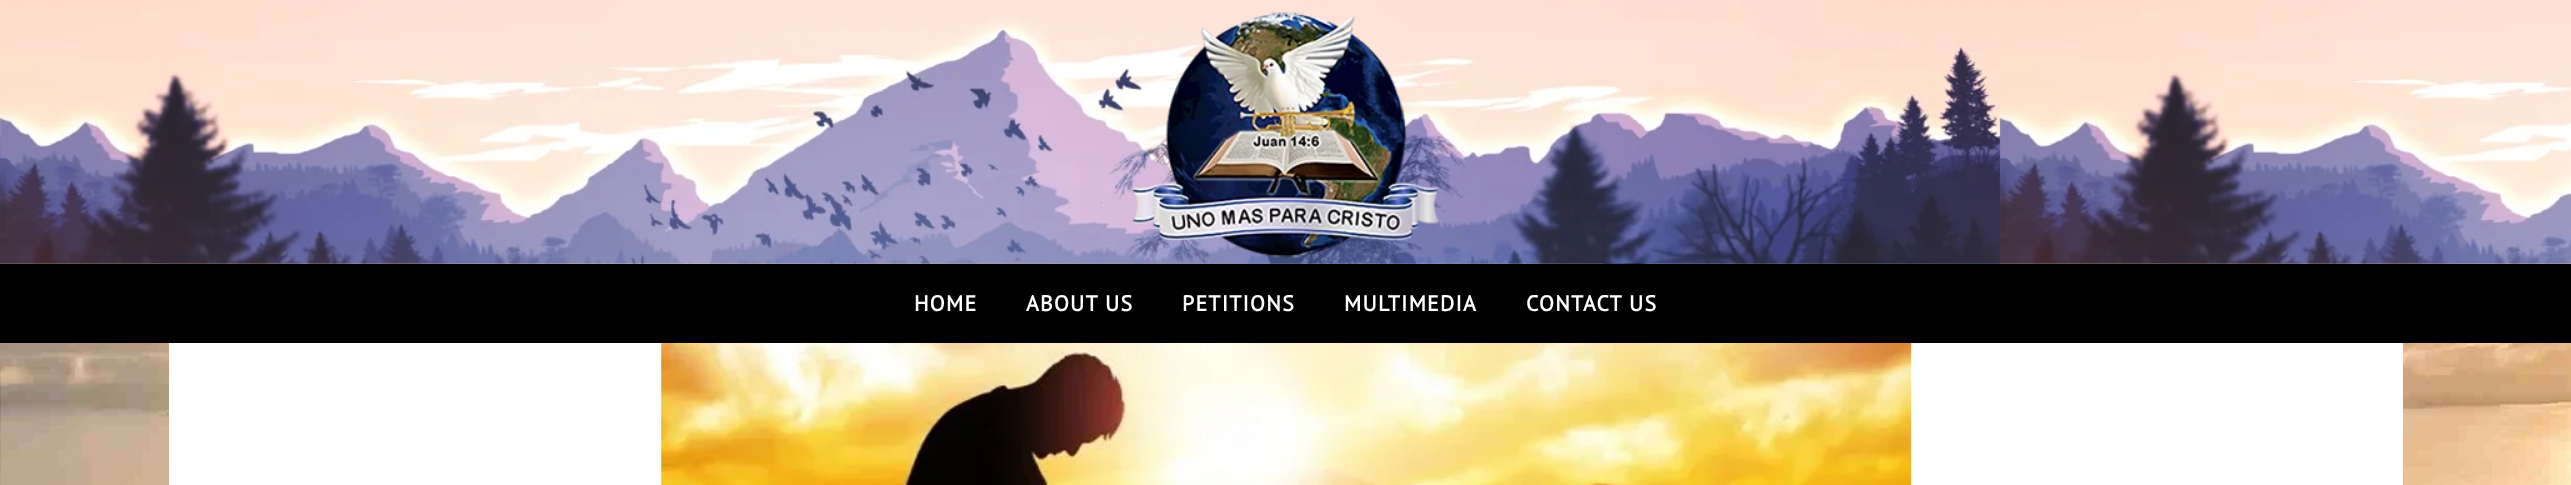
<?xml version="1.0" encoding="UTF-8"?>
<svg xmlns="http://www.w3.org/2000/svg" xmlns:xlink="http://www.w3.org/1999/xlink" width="2571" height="485">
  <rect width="100%" height="100%" fill="#ffffff" />
  <image x="0" y="263" width="2571" height="222" xlink:href="image1.png" />
  <image x="0" y="0" width="2571" height="264" xlink:href="image2.png" />
  <image x="1132" y="12" width="307" height="246" xlink:href="image3.png" />
  <rect y="264" width="2571" height="79" fill="#000000" />
  <rect x="169" y="343" width="2234" height="142" fill="#ffffff" />
  <image x="661" y="343" width="1251" height="142" xlink:href="image4.png" />
  <text x="914" y="311" style="font-family: PT Sans; font-size: 21.75px; font-weight: bold; letter-spacing: 1.25px; fill: #ffffff">HOME</text>
  <text x="1026" y="311" style="font-family: PT Sans; font-size: 21.75px; font-weight: bold; letter-spacing: 1.25px; fill: #ffffff">ABOUT US</text>
  <text x="1182" y="311" style="font-family: PT Sans; font-size: 21.75px; font-weight: bold; letter-spacing: 1.25px; fill: #ffffff">PETITIONS</text>
  <text x="1344" y="311" style="font-family: PT Sans; font-size: 21.75px; font-weight: bold; letter-spacing: 1.25px; fill: #ffffff">MULTIMEDIA</text>
  <text x="1526" y="311" style="font-family: PT Sans; font-size: 21.75px; font-weight: bold; letter-spacing: 1.25px; fill: #ffffff">CONTACT US</text>
</svg>
